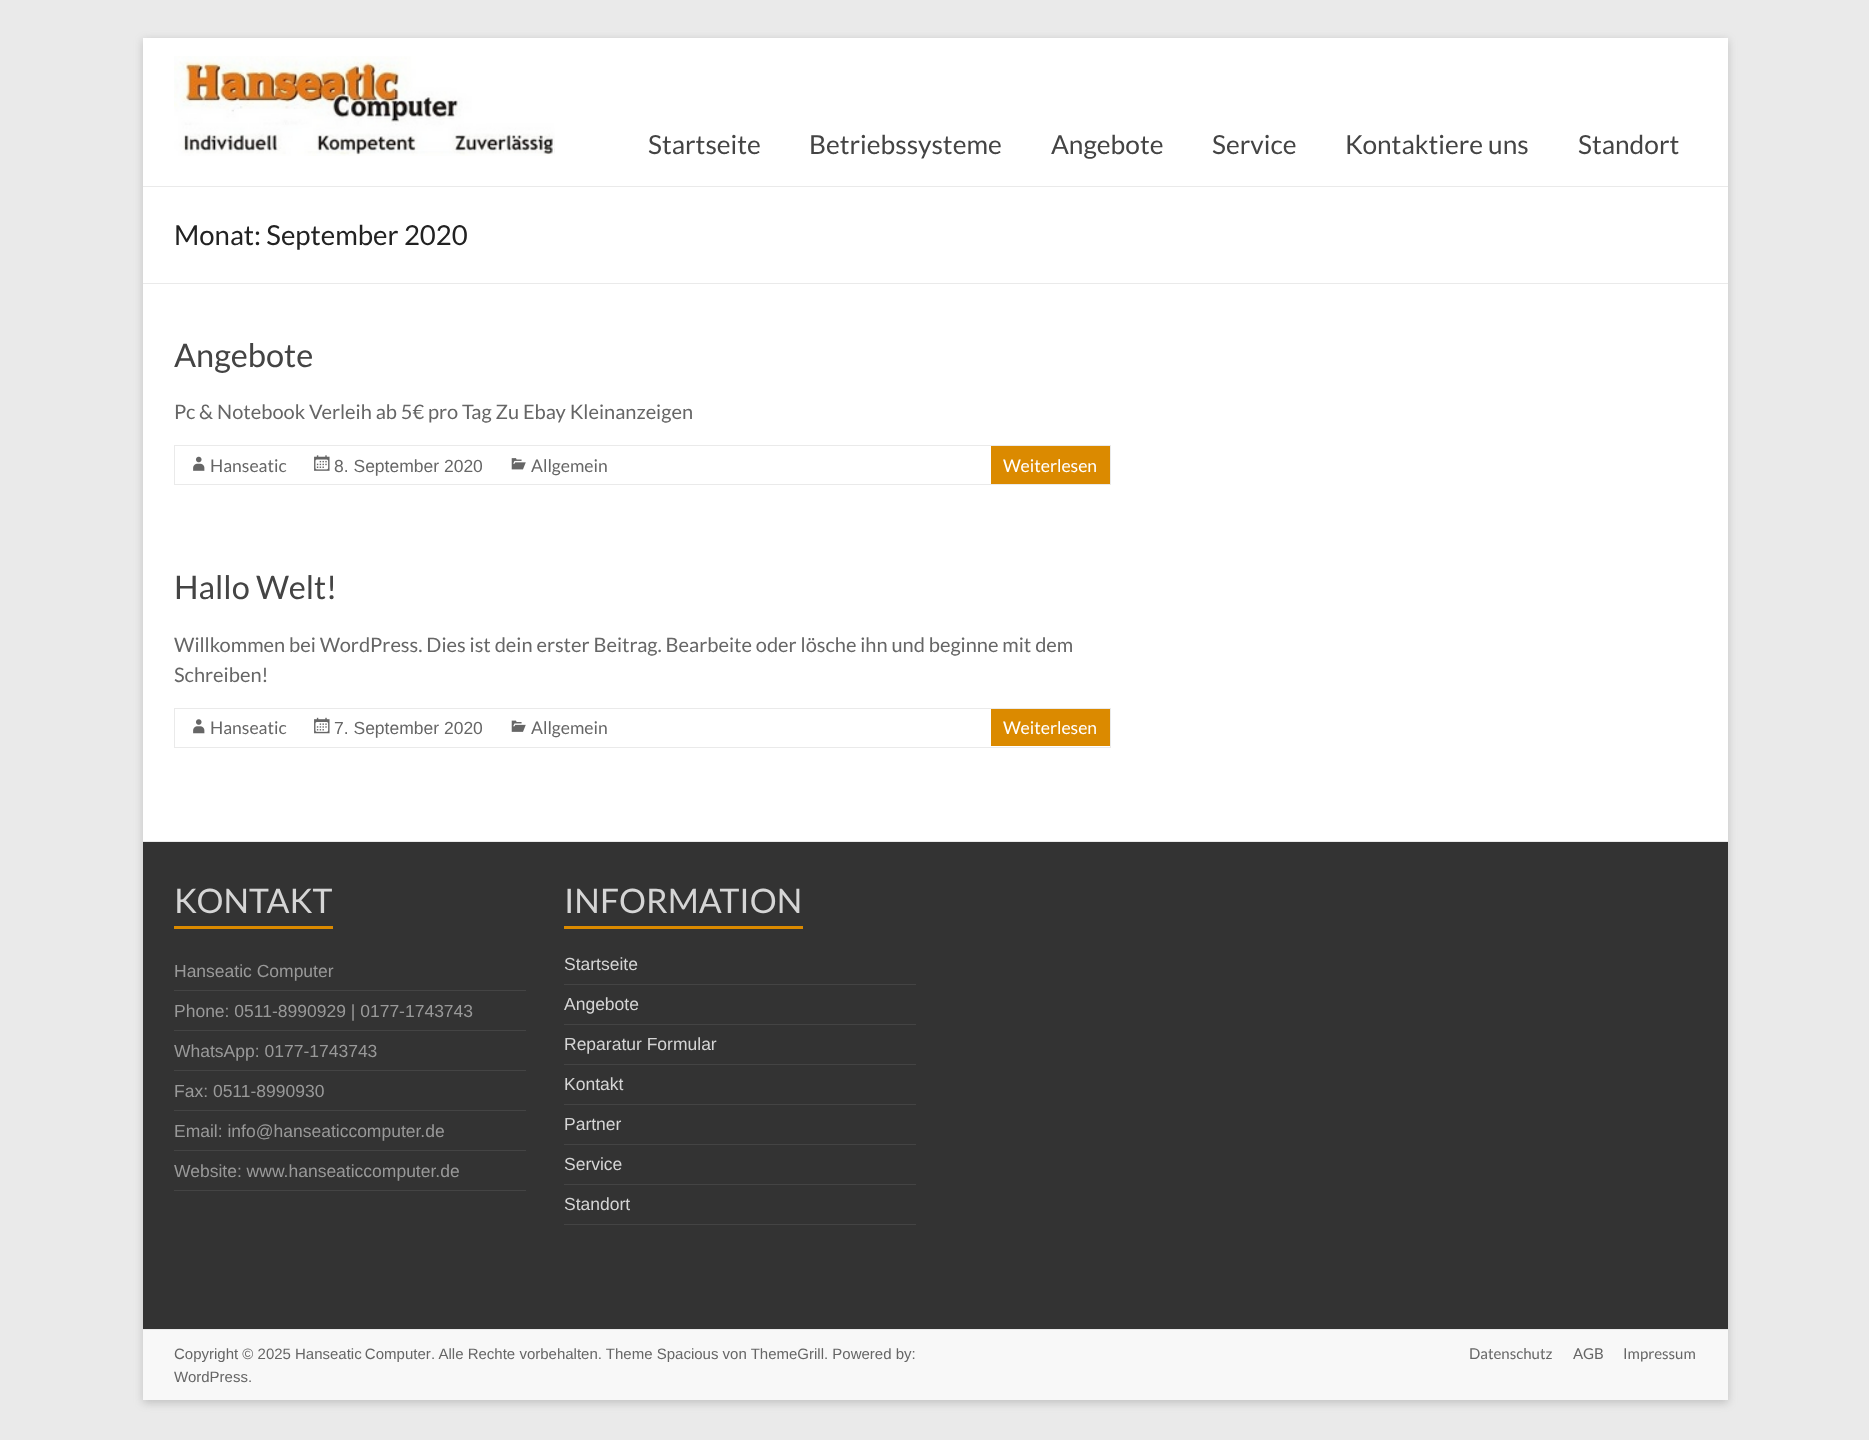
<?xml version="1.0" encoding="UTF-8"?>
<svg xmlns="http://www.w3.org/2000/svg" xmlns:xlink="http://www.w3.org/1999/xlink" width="1869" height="1440">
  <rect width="100%" height="100%" fill="#eaeaea" />
  <rect x="143" y="40" width="1585" height="1363" fill="#646464" fill-opacity="0.3" filter="blur(4px)" />
  <rect x="143" y="38" width="1585" height="803" fill="#ffffff" />
  <rect x="143" y="186" width="1585" height="1" fill="#eaeaea" />
  <image x="174" y="56" width="381" height="100" xlink:href="image1.png" />
  <rect x="143" y="283" width="1585" height="1" fill="#eaeaea" />
  <rect x="174.5" y="445.5" width="936" height="39" fill="none" stroke="#eaeaea" />
  <image x="193" y="456" width="12" height="15" xlink:href="image2.png" />
  <image x="314" y="455" width="16" height="16" xlink:href="image3.png" />
  <image x="511" y="458" width="15" height="12" xlink:href="image4.png" />
  <rect x="991" y="446" width="119" height="38" fill="#db8a00" />
  <rect x="174.5" y="708.5" width="936" height="39" fill="none" stroke="#eaeaea" />
  <image x="193" y="719" width="12" height="15" xlink:href="image5.png" />
  <image x="314" y="717" width="16" height="17" xlink:href="image6.png" />
  <image x="511" y="720" width="15" height="12" xlink:href="image7.png" />
  <rect x="991" y="709" width="119" height="37" fill="#db8a00" />
  <rect x="143" y="842" width="1585" height="487" fill="#333333" />
  <rect x="143" y="841" width="1585" height="1" fill="#eaeaea" />
  <rect x="174" y="926" width="159" height="3" fill="#db8a00" />
  <rect x="174" y="990" width="352" height="1" fill="#444444" />
  <rect x="174" y="1030" width="352" height="1" fill="#444444" />
  <rect x="174" y="1070" width="352" height="1" fill="#444444" />
  <rect x="174" y="1110" width="352" height="1" fill="#444444" />
  <rect x="174" y="1150" width="352" height="1" fill="#444444" />
  <rect x="174" y="1190" width="352" height="1" fill="#444444" />
  <rect x="564" y="926" width="239" height="3" fill="#db8a00" />
  <rect x="564" y="984" width="352" height="1" fill="#444444" />
  <rect x="564" y="1024" width="352" height="1" fill="#444444" />
  <rect x="564" y="1064" width="352" height="1" fill="#444444" />
  <rect x="564" y="1104" width="352" height="1" fill="#444444" />
  <rect x="564" y="1144" width="352" height="1" fill="#444444" />
  <rect x="564" y="1184" width="352" height="1" fill="#444444" />
  <rect x="564" y="1224" width="352" height="1" fill="#444444" />
  <rect x="143" y="1330" width="1585" height="70" fill="#f8f8f8" />
  <rect x="143" y="1329" width="1585" height="1" fill="#eaeaea" />
  <text x="648" y="154" style="font-family: Lato; font-size: 26.25px; fill: #444444">Startseite</text>
  <text x="809" y="154" style="font-family: Lato; font-size: 26.25px; fill: #444444">Betriebssysteme</text>
  <text x="1051" y="154" style="font-family: Lato; font-size: 26.25px; fill: #444444">Angebote</text>
  <text x="1212" y="154" style="font-family: Lato; font-size: 26.25px; fill: #444444">Service</text>
  <text x="1345" y="154" style="font-family: Lato; font-size: 26.25px; fill: #444444">Kontaktiere uns</text>
  <text x="1578" y="154" style="font-family: Lato; font-size: 26.25px; fill: #444444">Standort</text>
  <text x="174" y="245" style="font-family: Lato; font-size: 27.5px; fill: #222222">Monat: September 2020</text>
  <text x="174" y="367" style="font-family: Lato; font-size: 32.5px; fill: #444444">Angebote</text>
  <text x="174" y="419" style="font-family: Lato; font-size: 20px; fill: #666666">Pc &amp; Notebook Verleih ab 5€ pro Tag Zu Ebay Kleinanzeigen</text>
  <text x="210" y="472" style="font-family: Lato; font-size: 17.5px; fill: #666666">Hanseatic</text>
  <text x="334" y="472" style="font-family: Liberation Sans; font-size: 17.5px; fill: #666666">8. September 2020</text>
  <text x="531" y="472" style="font-family: Lato; font-size: 17.5px; fill: #666666">Allgemein</text>
  <text x="1003" y="472" style="font-family: Lato; font-size: 17.5px; fill: #ffffff">Weiterlesen</text>
  <text x="174" y="599" style="font-family: Lato; font-size: 32.5px; fill: #444444">Hallo Welt!</text>
  <text x="174" y="652" style="font-family: Lato; font-size: 20px; fill: #666666">Willkommen bei WordPress. Dies ist dein erster Beitrag. Bearbeite oder lösche ihn und beginne mit dem</text>
  <text x="174" y="682" style="font-family: Lato; font-size: 20px; fill: #666666">Schreiben!</text>
  <text x="210" y="734" style="font-family: Lato; font-size: 17.5px; fill: #666666">Hanseatic</text>
  <text x="334" y="734" style="font-family: Liberation Sans; font-size: 17.5px; fill: #666666">7. September 2020</text>
  <text x="531" y="734" style="font-family: Lato; font-size: 17.5px; fill: #666666">Allgemein</text>
  <text x="1003" y="734" style="font-family: Lato; font-size: 17.5px; fill: #ffffff">Weiterlesen</text>
  <text x="174" y="913" style="font-family: Lato; font-size: 33.75px; fill: #d5d5d5">KONTAKT</text>
  <text x="174" y="977" style="font-family: Liberation Sans; font-size: 17.5px; fill: #999999">Hanseatic Computer</text>
  <text x="174" y="1017" style="font-family: Liberation Sans; font-size: 17.5px; fill: #999999">Phone: 0511-8990929 | 0177-1743743</text>
  <text x="174" y="1057" style="font-family: Liberation Sans; font-size: 17.5px; fill: #999999">WhatsApp: 0177-1743743</text>
  <text x="174" y="1097" style="font-family: Liberation Sans; font-size: 17.5px; fill: #999999">Fax: 0511-8990930</text>
  <text x="174" y="1137" style="font-family: Liberation Sans; font-size: 17.5px; fill: #999999">Email: info@hanseaticcomputer.de</text>
  <text x="174" y="1177" style="font-family: Liberation Sans; font-size: 17.5px; fill: #999999">Website: www.hanseaticcomputer.de</text>
  <text x="564" y="913" style="font-family: Lato; font-size: 33.75px; fill: #d5d5d5">INFORMATION</text>
  <text x="564" y="970" style="font-family: Liberation Sans; font-size: 17.5px; fill: #d5d5d5">Startseite</text>
  <text x="564" y="1010" style="font-family: Liberation Sans; font-size: 17.5px; fill: #d5d5d5">Angebote</text>
  <text x="564" y="1050" style="font-family: Liberation Sans; font-size: 17.5px; fill: #d5d5d5">Reparatur Formular</text>
  <text x="564" y="1090" style="font-family: Liberation Sans; font-size: 17.5px; fill: #d5d5d5">Kontakt</text>
  <text x="564" y="1130" style="font-family: Liberation Sans; font-size: 17.5px; fill: #d5d5d5">Partner</text>
  <text x="564" y="1170" style="font-family: Liberation Sans; font-size: 17.5px; fill: #d5d5d5">Service</text>
  <text x="564" y="1210" style="font-family: Liberation Sans; font-size: 17.5px; fill: #d5d5d5">Standort</text>
  <text x="174" y="1359" style="font-family: Liberation Sans; font-size: 15px; fill: #666666">Copyright © 2025</text>
  <text x="295" y="1359" word-spacing="-1" style="font-family: Liberation Sans; font-size: 15px; fill: #666666">Hanseatic Computer</text>
  <text x="431" y="1359" style="font-family: Liberation Sans; font-size: 15px; fill: #666666">. Alle Rechte vorbehalten. Theme Spacious von ThemeGrill. Powered by:</text>
  <text x="174" y="1382" style="font-family: Liberation Sans; font-size: 15px; fill: #666666">WordPress.</text>
  <text x="1469" y="1359" style="font-family: Lato; font-size: 15px; fill: #666666">Datenschutz</text>
  <text x="1573" y="1359" style="font-family: Lato; font-size: 15px; fill: #666666">AGB</text>
  <text x="1623" y="1359" style="font-family: Lato; font-size: 15px; fill: #666666">Impressum</text>
</svg>
